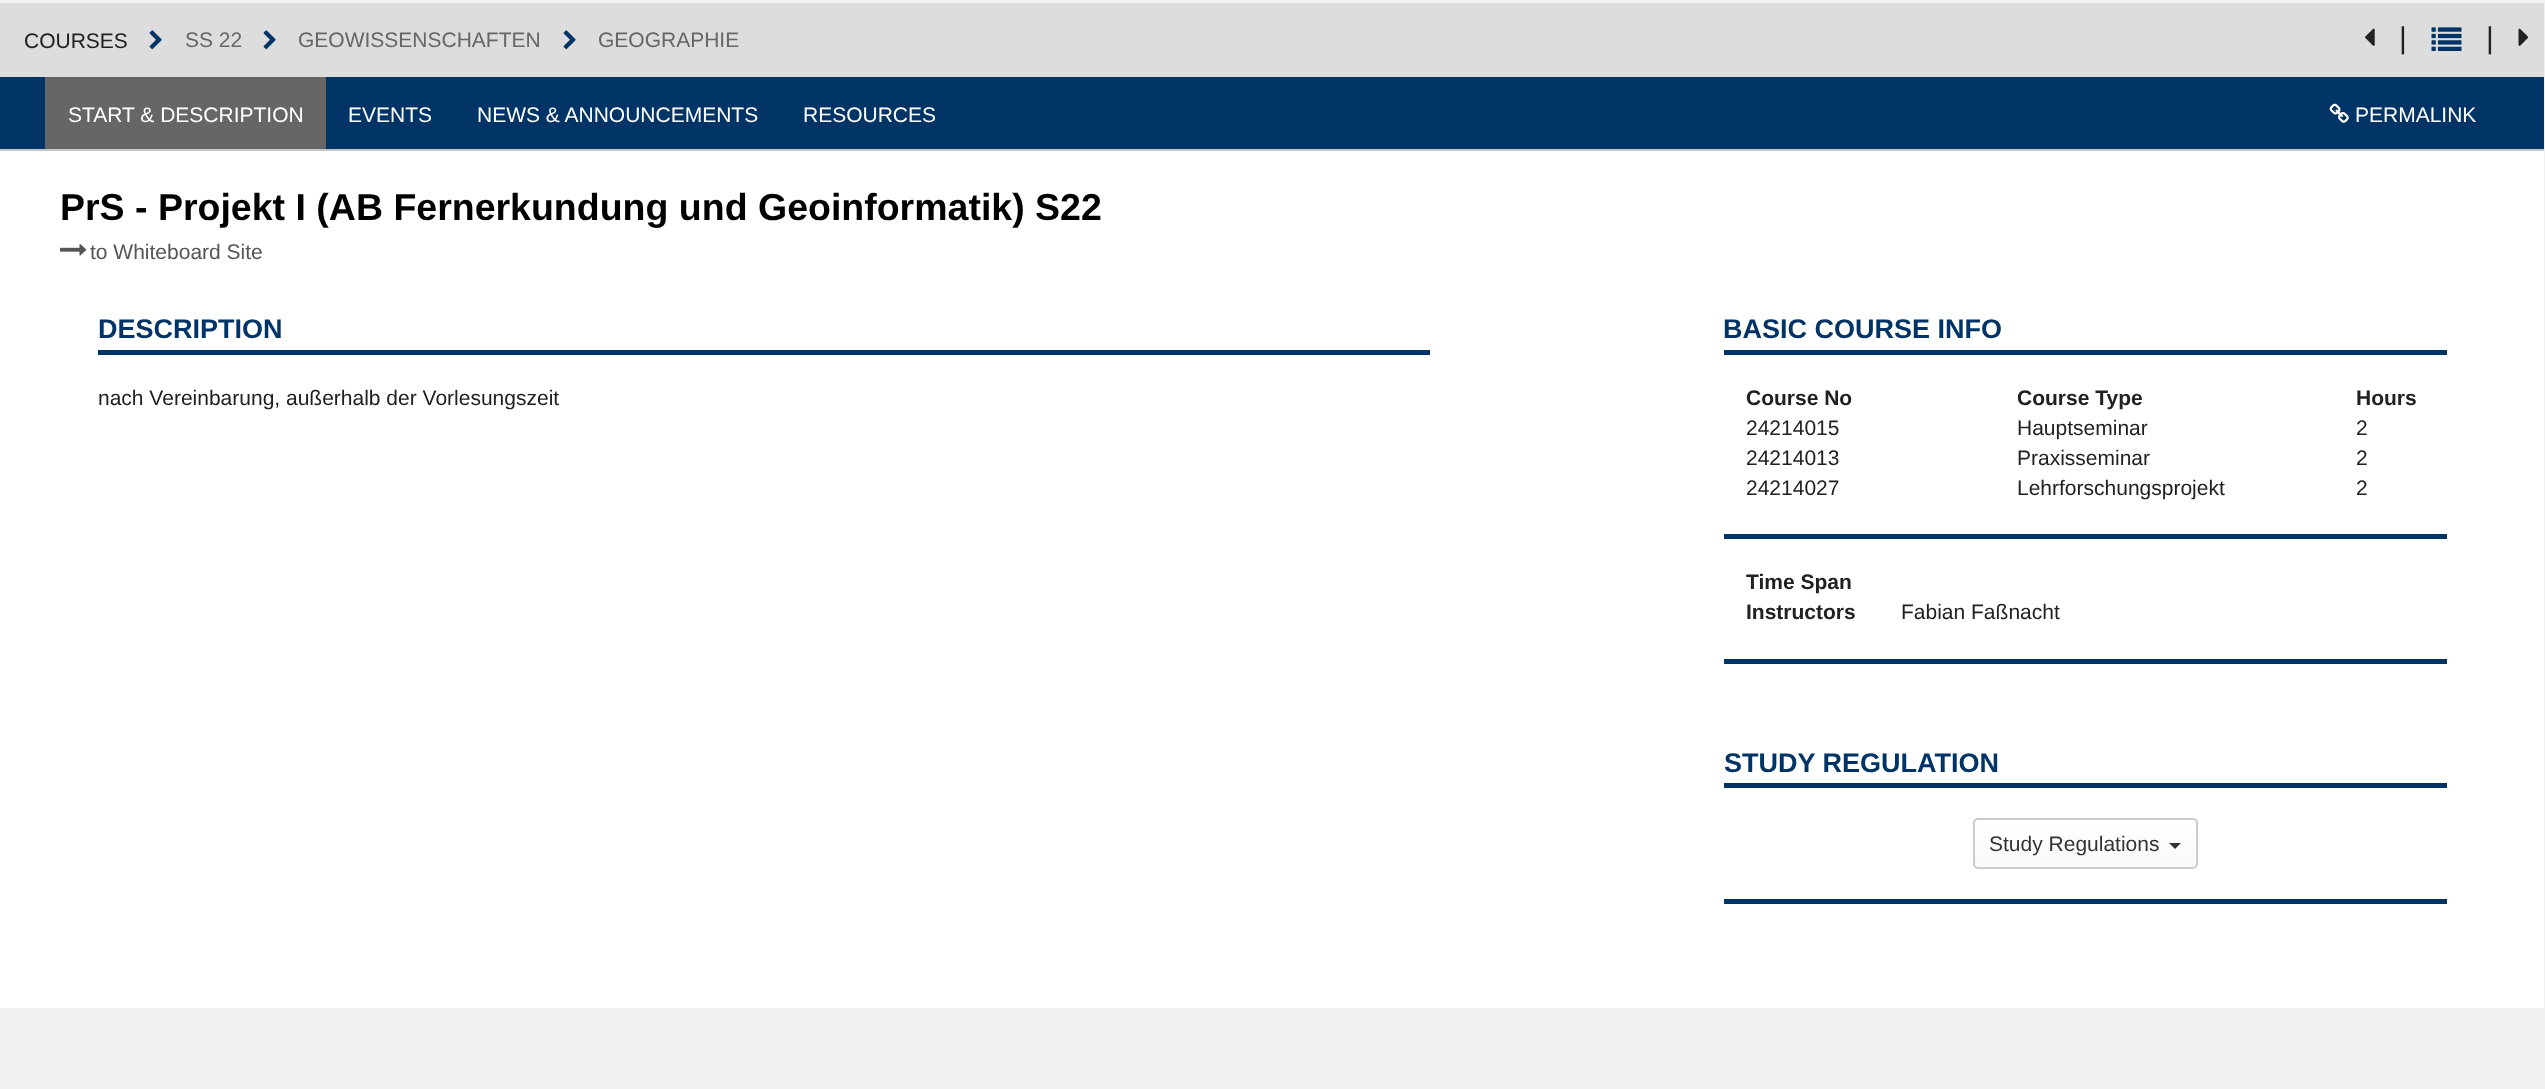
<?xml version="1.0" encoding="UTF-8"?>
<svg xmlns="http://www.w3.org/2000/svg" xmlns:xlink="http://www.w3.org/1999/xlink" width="2545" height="1089">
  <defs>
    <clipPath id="clip1"><rect x="1973" y="818" width="225" height="51" rx="5" /></clipPath>
    <linearGradient id="g1" gradientUnits="userSpaceOnUse" x1="2085" y1="819" x2="2085" y2="867"><stop offset="0" stop-color="#ffffff" /><stop offset="1" stop-color="#f9f9f9" /></linearGradient>
    <clipPath id="clip2"><rect x="599" y="26" width="141" height="25" /></clipPath>
  </defs>
  <rect width="100%" height="100%" fill="#f1f1f1" />
  <rect y="151" width="2544" height="857" fill="#ffffff" />
  <rect y="3" width="2544" height="74" fill="#dddddd" />
  <image x="149" y="30" width="13" height="20" xlink:href="image1.png" />
  <image x="263" y="30" width="13" height="20" xlink:href="image1.png" />
  <image x="563" y="30" width="13" height="20" xlink:href="image1.png" />
  <image x="2365" y="28" width="10" height="18" xlink:href="image2.png" />
  <image x="2431" y="27" width="31" height="24" xlink:href="image3.png" />
  <image x="2518" y="28" width="11" height="18" xlink:href="image4.png" />
  <rect y="77" width="2544" height="72" fill="#003366" />
  <rect y="149" width="2544" height="2" fill="#c6c6c6" />
  <rect x="45" y="77" width="281" height="72" fill="#666666" />
  <image x="2329" y="103" width="20" height="20" xlink:href="image5.png" />
  <image x="60" y="244" width="27" height="12" xlink:href="image6.png" />
  <rect x="98" y="350" width="1332" height="5" fill="#003366" />
  <rect x="1724" y="350" width="723" height="5" fill="#003366" />
  <rect x="1724" y="534" width="723" height="5" fill="#003366" />
  <rect x="1724" y="659" width="723" height="5" fill="#003366" />
  <rect x="1724" y="783" width="723" height="5" fill="#003366" />
  <g clip-path="url(#clip1)">
    <rect x="1973" y="819" width="225" height="48" fill="url(#g1)" />
  </g>
  <rect x="1974" y="819" width="223" height="49" rx="4" fill="none" stroke="#cccccc" stroke-width="2" />
  <path d="M 2169 843 h 12 l -6 6 z" fill="#333333" />
  <rect x="1724" y="899" width="723" height="5" fill="#003366" />
  <text x="24" y="48" style="font-family: Liberation Sans; font-size: 21px; fill: #212121">COURSES</text>
  <text x="185" y="47" style="font-family: Liberation Sans; font-size: 21px; fill: #666666">SS 22</text>
  <text x="298" y="47" style="font-family: Liberation Sans; font-size: 21px; fill: #666666">GEOWISSENSCHAFTEN</text>
  <g clip-path="url(#clip2)">
    <text x="598" y="47" style="font-family: Liberation Sans; font-size: 21px; fill: #666666">GEOGRAPHIE</text>
  </g>
  <text x="2399" y="48" style="font-family: Liberation Sans; font-size: 30px; fill: #212121">|</text>
  <text x="2486" y="48" style="font-family: Liberation Sans; font-size: 30px; fill: #212121">|</text>
  <text x="68" y="122" style="font-family: Liberation Sans; font-size: 21px; fill: #ffffff">START &amp; DESCRIPTION</text>
  <text x="348" y="122" style="font-family: Liberation Sans; font-size: 21px; fill: #ffffff">EVENTS</text>
  <text x="477" y="122" style="font-family: Liberation Sans; font-size: 21px; fill: #ffffff">NEWS &amp; ANNOUNCEMENTS</text>
  <text x="803" y="122" style="font-family: Liberation Sans; font-size: 21px; fill: #ffffff">RESOURCES</text>
  <text x="2355" y="122" style="font-family: Liberation Sans; font-size: 21px; fill: #ffffff">PERMALINK</text>
  <text x="60" y="220" style="font-family: Liberation Sans; font-size: 37.5px; font-weight: bold; fill: #000000">PrS - Projekt I (AB Fernerkundung und Geoinformatik) S22</text>
  <text x="90" y="259" style="font-family: Liberation Sans; font-size: 21px; fill: #555555">to Whiteboard Site</text>
  <text x="98" y="338" style="font-family: Liberation Sans; font-size: 27px; font-weight: bold; fill: #003366">DESCRIPTION</text>
  <text x="98" y="405" style="font-family: Liberation Sans; font-size: 21px; fill: #212121">nach Vereinbarung, außerhalb der Vorlesungszeit</text>
  <text x="1723" y="338" style="font-family: Liberation Sans; font-size: 27px; font-weight: bold; fill: #003366">BASIC COURSE INFO</text>
  <text x="1746" y="405" style="font-family: Liberation Sans; font-size: 21px; font-weight: bold; fill: #212121">Course No</text>
  <text x="2017" y="405" style="font-family: Liberation Sans; font-size: 21px; font-weight: bold; fill: #212121">Course Type</text>
  <text x="2356" y="405" style="font-family: Liberation Sans; font-size: 21px; font-weight: bold; fill: #212121">Hours</text>
  <text x="1746" y="435" style="font-family: Liberation Sans; font-size: 21px; fill: #212121">24214015</text>
  <text x="2017" y="435" style="font-family: Liberation Sans; font-size: 21px; fill: #212121">Hauptseminar</text>
  <text x="2356" y="435" style="font-family: Liberation Sans; font-size: 21px; fill: #212121">2</text>
  <text x="1746" y="465" style="font-family: Liberation Sans; font-size: 21px; fill: #212121">24214013</text>
  <text x="2017" y="465" style="font-family: Liberation Sans; font-size: 21px; fill: #212121">Praxisseminar</text>
  <text x="2356" y="465" style="font-family: Liberation Sans; font-size: 21px; fill: #212121">2</text>
  <text x="1746" y="495" style="font-family: Liberation Sans; font-size: 21px; fill: #212121">24214027</text>
  <text x="2017" y="495" style="font-family: Liberation Sans; font-size: 21px; fill: #212121">Lehrforschungsprojekt</text>
  <text x="2356" y="495" style="font-family: Liberation Sans; font-size: 21px; fill: #212121">2</text>
  <text x="1746" y="589" style="font-family: Liberation Sans; font-size: 21px; font-weight: bold; fill: #212121">Time Span</text>
  <text x="1746" y="619" style="font-family: Liberation Sans; font-size: 21px; font-weight: bold; fill: #212121">Instructors</text>
  <text x="1901" y="619" style="font-family: Liberation Sans; font-size: 21px; fill: #212121">Fabian Faßnacht</text>
  <text x="1724" y="772" style="font-family: Liberation Sans; font-size: 27px; font-weight: bold; fill: #003366">STUDY REGULATION</text>
  <text x="1989" y="851" style="font-family: Liberation Sans; font-size: 21px; fill: #333333">Study Regulations</text>
</svg>
